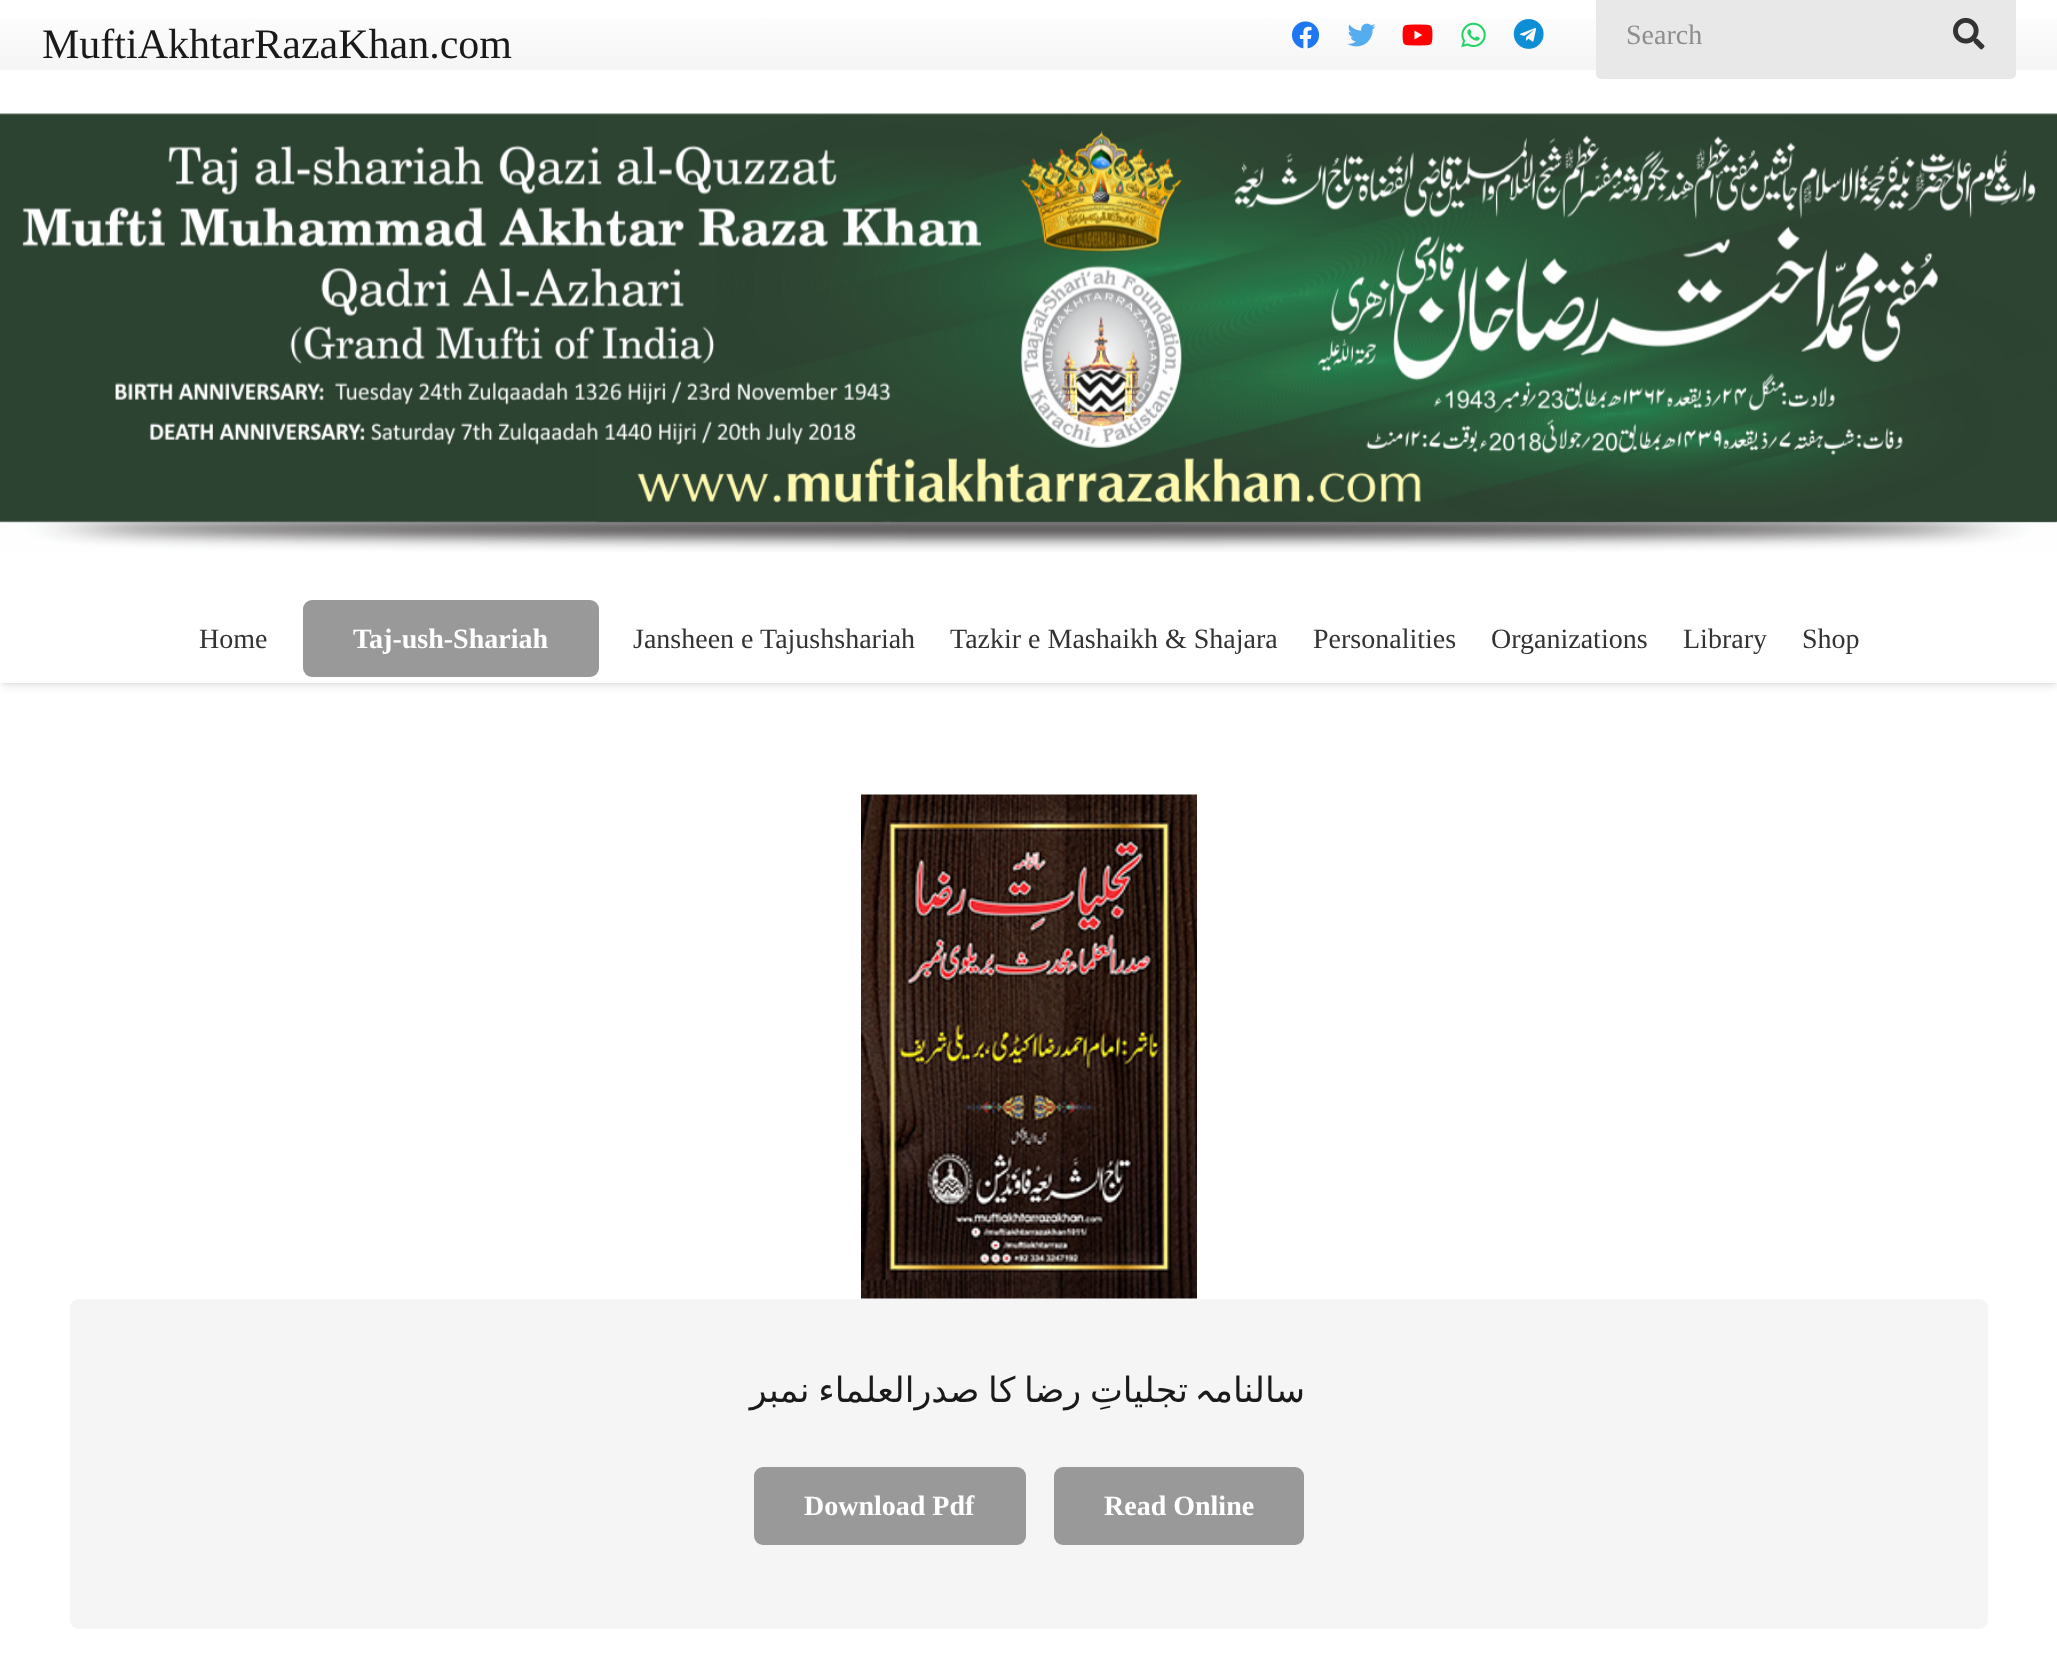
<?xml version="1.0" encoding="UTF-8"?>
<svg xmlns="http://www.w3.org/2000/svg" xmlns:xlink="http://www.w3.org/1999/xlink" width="2057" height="1662">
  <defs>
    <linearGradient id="g1" gradientUnits="userSpaceOnUse" x1="1029" y1="70" x2="1029" y2="0"><stop offset="0" stop-color="#f5f5f5" /><stop offset="1" stop-color="#ffffff" /></linearGradient>
  </defs>
  <rect width="100%" height="100%" fill="#ffffff" />
  <rect y="18" width="2057" height="52" fill="url(#g1)" />
  <image x="1291" y="21" width="29" height="28" xlink:href="image1.png" />
  <image x="1347" y="23" width="29" height="24" xlink:href="image2.png" />
  <image x="1402" y="24" width="31" height="22" xlink:href="image3.png" />
  <image x="1461" y="22" width="25" height="26" xlink:href="image4.png" />
  <image x="1513" y="19" width="31" height="30" xlink:href="image5.png" />
  <rect x="1597" y="-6" width="418" height="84" rx="4" fill="#e8e8e8" stroke="#e8e8e8" stroke-width="2" />
  <image x="1953" y="17" width="32" height="33" xlink:href="image6.png" />
  <image x="0" y="113" width="2057" height="439" xlink:href="image7.png" />
  <rect x="2" y="600" width="2054" height="84" fill="#000000" fill-opacity="0.05" filter="blur(1px)" />
  <rect x="2" y="602" width="2054" height="84" fill="#000000" fill-opacity="0.1" filter="blur(4.5px)" />
  <rect y="596" width="2057" height="87" fill="#ffffff" />
  <rect x="303" y="600" width="296" height="77" rx="9" fill="#999999" />
  <image x="861" y="794" width="336" height="505" xlink:href="image8.png" />
  <rect x="70" y="1299" width="1918" height="330" rx="9" fill="#f5f5f5" />
  <rect x="754" y="1467" width="272" height="78" rx="9" fill="#999999" />
  <rect x="1054" y="1467" width="250" height="78" rx="9" fill="#999999" />
  <text x="42" y="58" style="font-family: Liberation Serif; font-size: 42px; fill: #1a1a1a">MuftiAkhtarRazaKhan.com</text>
  <text x="1626" y="44" style="font-family: Liberation Serif; font-size: 28px; fill: #8e8e8e">Search</text>
  <text x="199" y="648" style="font-family: Liberation Serif; font-size: 28px; fill: #333333">Home</text>
  <text x="353" y="648" style="font-family: Liberation Serif; font-size: 28px; font-weight: bold; fill: #ffffff">Taj-ush-Shariah</text>
  <text x="633" y="648" style="font-family: Liberation Serif; font-size: 28px; fill: #333333">Jansheen e Tajushshariah</text>
  <text x="950" y="648" style="font-family: Liberation Serif; font-size: 28px; fill: #333333">Tazkir e Mashaikh &amp; Shajara</text>
  <text x="1313" y="648" style="font-family: Liberation Serif; font-size: 28px; fill: #333333">Personalities</text>
  <text x="1491" y="648" style="font-family: Liberation Serif; font-size: 28px; fill: #333333">Organizations</text>
  <text x="1683" y="648" style="font-family: Liberation Serif; font-size: 28px; fill: #333333">Library</text>
  <text x="1802" y="648" style="font-family: Liberation Serif; font-size: 28px; fill: #333333">Shop</text>
  <text x="1188" y="1402" word-spacing="-2.5" style="font-family: DejaVu Sans; font-size: 35px; direction: rtl; fill: #1a1a1a">تجلیاتِ رضا کا صدرالعلماء نمبر</text>
  <text x="1215" y="1402" style="font-family: Cascadia Code; font-size: 35px; direction: rtl; fill: #1a1a1a">‍ہ</text>
  <text x="1305" y="1402" style="font-family: DejaVu Sans; font-size: 35px; direction: rtl; fill: #1a1a1a">سالنام‍</text>
  <text x="804" y="1515" style="font-family: Liberation Serif; font-size: 28px; font-weight: bold; fill: #ffffff">Download Pdf</text>
  <text x="1104" y="1515" style="font-family: Liberation Serif; font-size: 28px; font-weight: bold; fill: #ffffff">Read Online</text>
</svg>
